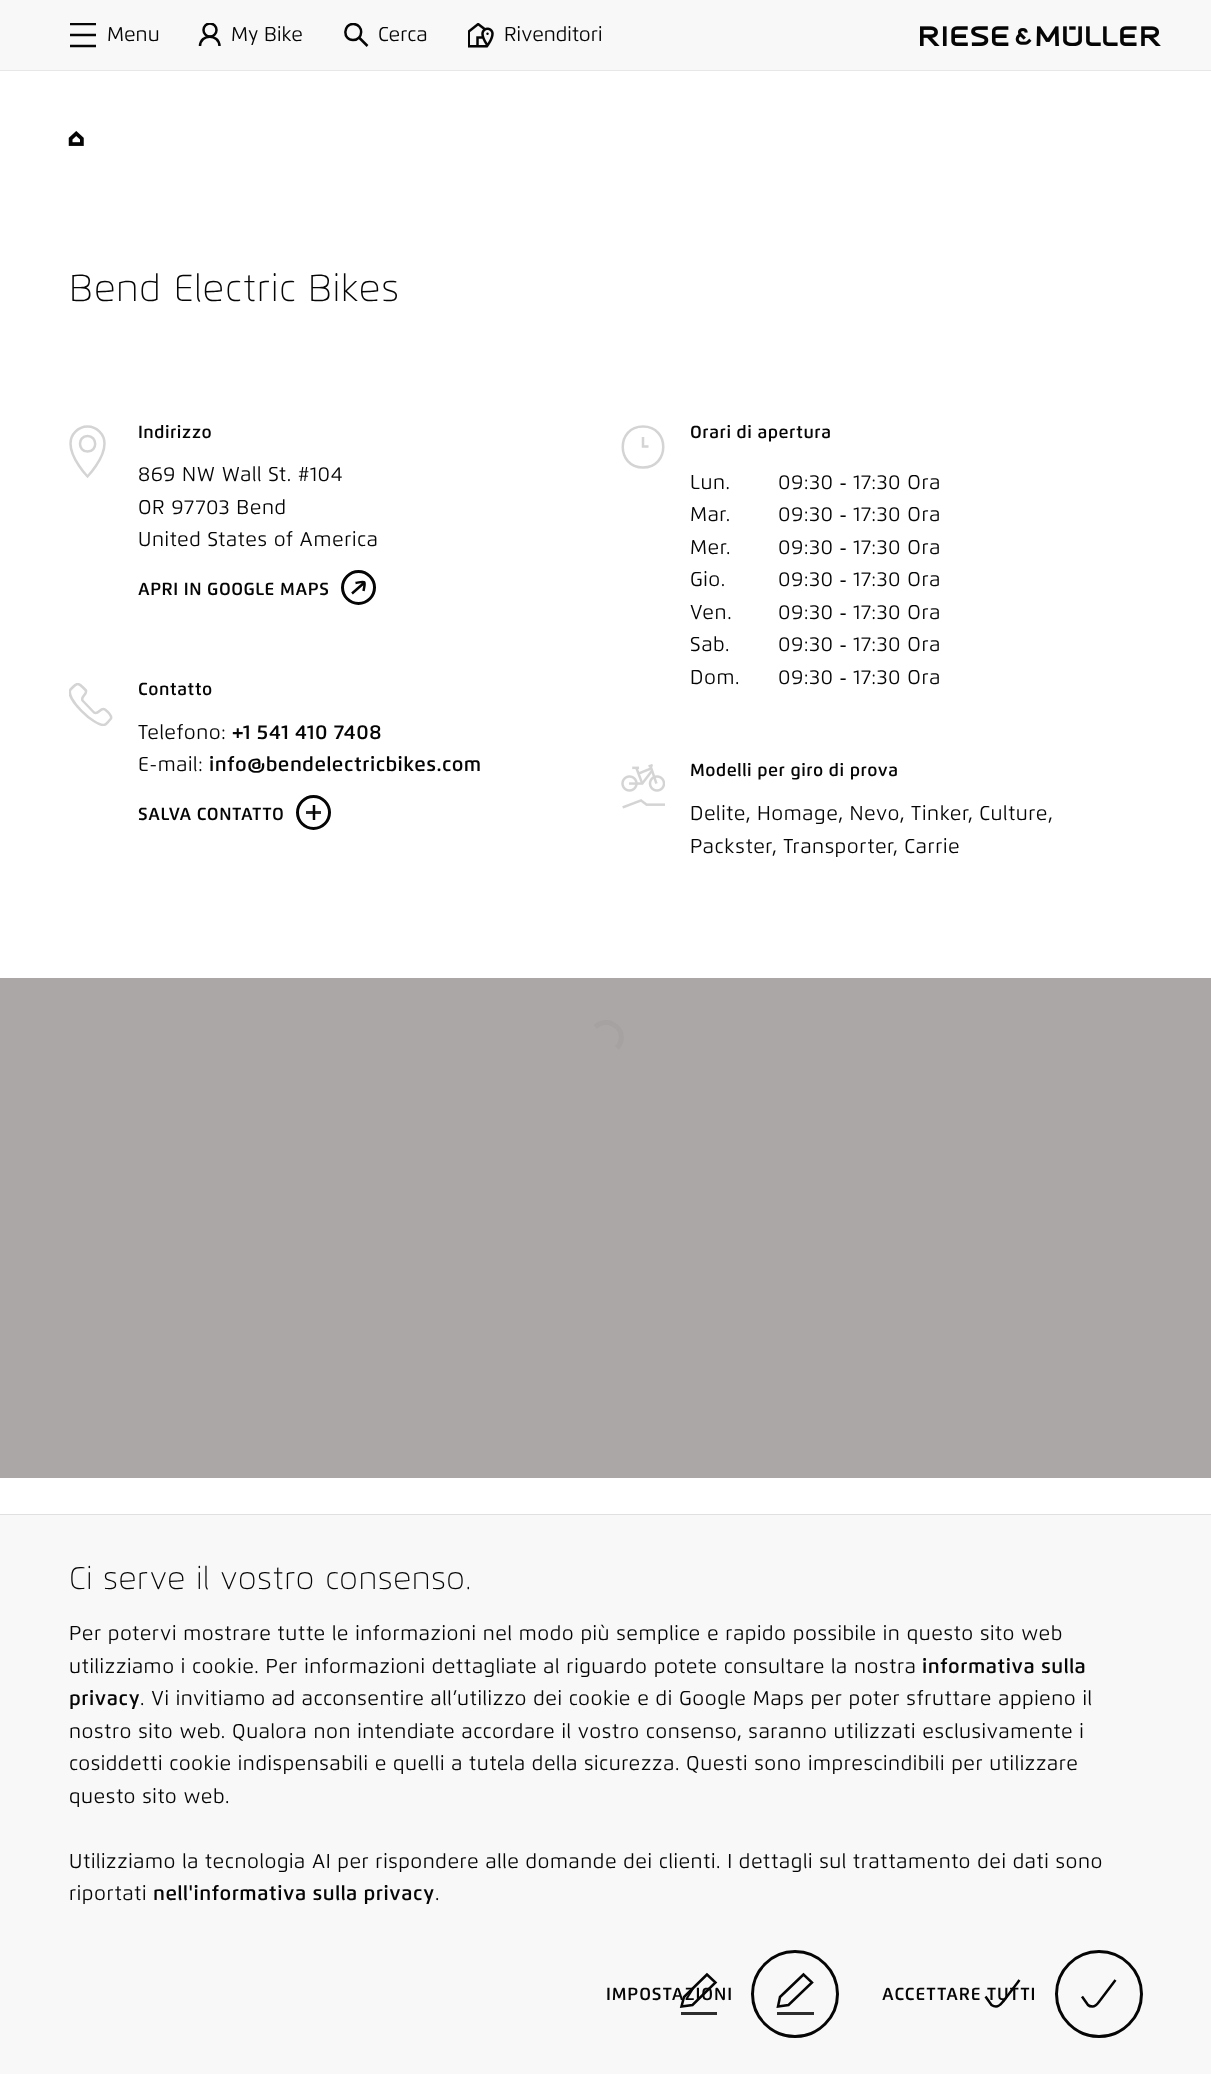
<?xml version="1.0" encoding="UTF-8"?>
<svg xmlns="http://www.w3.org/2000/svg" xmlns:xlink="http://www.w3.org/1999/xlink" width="1211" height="2074">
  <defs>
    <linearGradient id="g1" gradientUnits="userSpaceOnUse" x1="0" y1="35" x2="1211" y2="35"><stop offset="0" stop-color="#f8f8f8" /><stop offset="0.5" stop-color="#f8f8f8" /><stop offset="1" stop-color="#ffffff" /></linearGradient>
    <linearGradient id="g2" gradientUnits="userSpaceOnUse" x1="0" y1="35" x2="1211" y2="35"><stop offset="0" stop-color="#f8f8f8" stop-opacity="0" /><stop offset="0.5" stop-color="#f8f8f8" /><stop offset="1" stop-color="#f8f8f8" /></linearGradient>
    <clipPath id="clip1"><rect x="70" y="23" width="26" height="25" /></clipPath>
    <clipPath id="clip2"><rect x="199" y="23" width="22" height="25" /></clipPath>
    <clipPath id="clip3"><rect x="344" y="23" width="25" height="25" /></clipPath>
    <clipPath id="clip4"><rect x="69" y="683" width="44" height="43" /></clipPath>
  </defs>
  <rect width="100%" height="100%" fill="#ffffff" />
  <rect width="602" height="70" fill="url(#g1)" />
  <rect x="602" width="609" height="70" fill="url(#g2)" />
  <rect y="70" width="1211" height="1" fill="#e7e7e7" />
  <g clip-path="url(#clip1)">
    <path d="M 70 24 h 26.5 m -26.5 11 h 26.5 m -26.5 11 h 26.5" fill="none" stroke="#050505" stroke-width="2.5" />
  </g>
  <g clip-path="url(#clip2)">
    <circle cx="210" cy="30" r="6.5" fill="none" stroke="#050505" stroke-width="2.5" />
  </g>
  <path d="M 200 46 c 0.5 -12.5 19 -12.5 19.5 0" fill="none" stroke="#050505" stroke-width="2.5" />
  <g clip-path="url(#clip3)">
    <path d="M 353 40 c 10.5 0 11 -15.5 0.5 -16 c -10.5 -0.5 -11 16 -0.5 16 z" fill="none" stroke="#050505" stroke-width="2.5" />
  </g>
  <path d="M 359 37.5 l 8.5 8.5" fill="none" stroke="#050505" stroke-width="2.5" />
  <image x="468" y="23" width="26" height="25" xlink:href="image1.png" />
  <image x="920" y="26" width="241" height="20" xlink:href="image2.png" />
  <rect y="978" width="1211" height="500" fill="#aaa7a6" />
  <path d="M 595.5 1027 c 10.5 -10.5 28.5 -1 25.5 13.5 c -0.5 3 -2 5.5 -4 7.5" fill="none" stroke="#a5a2a1" stroke-width="5" />
  <rect y="1515" width="1211" height="559" fill="#f8f8f8" />
  <rect y="1514" width="1211" height="1" fill="#e0e0e0" />
  <path d="M 707 1974.5 l -23 22.5 l -2.5 9.5 l 11 -1.5 l 23 -22.5 z" fill="none" stroke="#050505" stroke-width="2.5" />
  <rect x="681" y="2012" width="36" height="3" fill="#2d2d2d" />
  <path d="M 803.5 1974.5 l -23.5 22.5 l -2 9.5 l 10.5 -1.5 l 23.5 -22.5 z" fill="none" stroke="#050505" stroke-width="2.5" />
  <rect x="777" y="2012" width="37" height="3" fill="#2d2d2d" />
  <circle cx="795" cy="1994" r="42.5" fill="none" stroke="#050505" stroke-width="3" />
  <path d="M 985.5 1996.5 l 6 8.5 c 1.5 1 3 1.5 4.5 1.5 c 4 0 5.5 -3.5 8 -6 l 15.5 -20.5" fill="none" stroke="#050505" stroke-width="2.5" stroke-linejoin="round" />
  <path d="M 1082 1996.5 l 6 8.5 c 1 1 2.5 1.5 4.5 1.5 c 3.5 0 5.5 -3.5 7.5 -6 l 15.5 -20.5" fill="none" stroke="#050505" stroke-width="2.5" stroke-linejoin="round" />
  <circle cx="1099" cy="1994" r="42.5" fill="none" stroke="#050505" stroke-width="3" />
  <image x="68" y="131" width="16" height="15" xlink:href="image3.png" />
  <path d="M 87.5 426.5 c -9.5 0 -17 8 -17 17 c 0 15.5 17 33 17 33 c 0 0 17 -17.5 17 -33 c 0 -9 -7.5 -17 -17 -17 z m 0 9.5 c -10 0 -10 15.5 0 15.5 c 10.5 0 10 -15.5 0 -15.5 z" fill="none" stroke="#d4d4d4" stroke-width="2.5" />
  <circle cx="358.5" cy="587.5" r="16" fill="none" stroke="#050505" stroke-width="3" />
  <path d="M 352 593.5 l 12.5 -11 m -9 0.5 c 11 -2 10 -2.5 8 8" fill="none" stroke="#050505" stroke-width="2.5" />
  <g clip-path="url(#clip4)">
    <path d="M 70.5 689.5 c -5.5 8.5 23.5 36.5 33.5 35.5 c 2 -0.5 2.5 -1.5 4 -3 l 3 -3.5 c 1 -3 -3.5 -7 -6 -9 c -4.5 -3 -6.5 6 -11 3 l -11.5 -12 c -2 -4.5 4.5 -5.5 3.5 -10 l -3.5 -3.5 c -4 -4 -5.5 -4 -9.5 0 z" fill="none" stroke="#d4d4d4" stroke-width="2.5" stroke-linejoin="round" />
  </g>
  <circle cx="313.5" cy="812.5" r="16" fill="none" stroke="#050505" stroke-width="3" />
  <path d="M 314 805 v 15" fill="none" stroke="#050505" stroke-width="2.5" />
  <rect x="306" y="811" width="15" height="3" fill="#050505" fill-opacity="0.83" />
  <path d="M 643 426.5 c -27 0 -27 41 0 41 c 27 0 27 -41 0 -41 z m 5.5 20 h -5.5 v -9.5" fill="none" stroke="#d4d4d4" stroke-width="2.5" />
  <image x="621" y="764" width="44" height="45" xlink:href="image4.png" />
  <text x="107" y="41" style="font-family: 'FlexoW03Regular'; font-size: 20px; fill: #050505">Menu</text>
  <text x="231" y="41" style="font-family: 'FlexoW03Regular'; font-size: 20px; fill: #050505">My Bike</text>
  <text x="378" y="41" style="font-family: 'FlexoW03Regular'; font-size: 20px; fill: #050505">Cerca</text>
  <text x="504" y="41" style="font-family: 'FlexoW03Regular'; font-size: 20px; fill: #050505">Rivenditori</text>
  <text x="69" y="1589" style="font-family: 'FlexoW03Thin'; font-size: 31.25px; font-weight: 100; letter-spacing: 0.53px; fill: #050505">Ci serve il vostro consenso.</text>
  <text x="69" y="1640" style="font-family: 'FlexoW03Regular'; font-size: 20px; letter-spacing: 0.53px; fill: #050505">Per potervi mostrare tutte le informazioni nel modo più semplice e rapido possibile in questo sito web</text>
  <text x="69" y="1673" style="font-family: 'FlexoW03Regular'; font-size: 20px; letter-spacing: 0.53px; fill: #050505">utilizziamo i cookie. Per informazioni dettagliate al riguardo potete consultare la nostra</text>
  <text x="922" y="1673" style="font-family: 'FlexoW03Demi'; font-size: 20px; font-weight: 600; letter-spacing: 0.53px; fill: #050505">informativa sulla</text>
  <text x="69" y="1705" style="font-family: 'FlexoW03Demi'; font-size: 20px; font-weight: 600; letter-spacing: 0.53px; fill: #050505">privacy</text>
  <text x="140" y="1705" style="font-family: 'FlexoW03Regular'; font-size: 20px; letter-spacing: 0.53px; fill: #050505">. Vi invitiamo ad acconsentire all’utilizzo dei cookie e di Google Maps per poter sfruttare appieno il</text>
  <text x="69" y="1738" style="font-family: 'FlexoW03Regular'; font-size: 20px; letter-spacing: 0.53px; fill: #050505">nostro sito web. Qualora non intendiate accordare il vostro consenso, saranno utilizzati esclusivamente i</text>
  <text x="69" y="1770" style="font-family: 'FlexoW03Regular'; font-size: 20px; letter-spacing: 0.53px; fill: #050505">cosiddetti cookie indispensabili e quelli a tutela della sicurezza. Questi sono imprescindibili per utilizzare</text>
  <text x="69" y="1803" style="font-family: 'FlexoW03Regular'; font-size: 20px; letter-spacing: 0.53px; fill: #050505">questo sito web.</text>
  <text x="69" y="1868" style="font-family: 'FlexoW03Regular'; font-size: 20px; letter-spacing: 0.53px; fill: #050505">Utilizziamo la tecnologia AI per rispondere alle domande dei clienti. I dettagli sul trattamento dei dati sono</text>
  <text x="69" y="1900" style="font-family: 'FlexoW03Regular'; font-size: 20px; letter-spacing: 0.53px; fill: #050505">riportati</text>
  <text x="153" y="1900" style="font-family: 'FlexoW03Demi'; font-size: 20px; font-weight: 600; letter-spacing: 0.53px; fill: #050505">nell'informativa sulla privacy</text>
  <text x="435" y="1900" style="font-family: 'FlexoW03Regular'; font-size: 20px; letter-spacing: 0.53px; fill: #050505">.</text>
  <text x="606" y="2000" style="font-family: 'FlexoW03Demi'; font-size: 17.5px; font-weight: 600; letter-spacing: 0.9px; fill: #050505">IMPOSTAZIONI</text>
  <text x="882" y="2000" style="font-family: 'FlexoW03Demi'; font-size: 17.5px; font-weight: 600; letter-spacing: 0.9px; fill: #050505">ACCETTARE TUTTI</text>
  <text x="69" y="301" style="font-family: 'FlexoW03Thin'; font-size: 37.5px; font-weight: 100; letter-spacing: 0.53px; fill: #050505">Bend Electric Bikes</text>
  <text x="138" y="438" style="font-family: 'FlexoW03Demi'; font-size: 17.5px; font-weight: 600; letter-spacing: 0.53px; fill: #050505">Indirizzo</text>
  <text x="138" y="481" style="font-family: 'FlexoW03Regular'; font-size: 20px; letter-spacing: 0.53px; fill: #050505">869 NW Wall St. #104</text>
  <text x="138" y="514" style="font-family: 'FlexoW03Regular'; font-size: 20px; letter-spacing: 0.53px; fill: #050505">OR 97703 Bend</text>
  <text x="138" y="546" style="font-family: 'FlexoW03Regular'; font-size: 20px; letter-spacing: 0.53px; fill: #050505">United States of America</text>
  <text x="138" y="595" style="font-family: 'FlexoW03Demi'; font-size: 17.5px; font-weight: 600; letter-spacing: 0.53px; fill: #050505">APRI IN GOOGLE MAPS</text>
  <text x="138" y="695" style="font-family: 'FlexoW03Demi'; font-size: 17.5px; font-weight: 600; letter-spacing: 0.53px; fill: #050505">Contatto</text>
  <text x="138" y="739" style="font-family: 'FlexoW03Regular'; font-size: 20px; letter-spacing: 0.53px; fill: #050505">Telefono:</text>
  <text x="232" y="739" style="font-family: 'FlexoW03Demi'; font-size: 20px; font-weight: 600; letter-spacing: 0.53px; fill: #050505">+1 541 410 7408</text>
  <text x="138" y="771" style="font-family: 'FlexoW03Regular'; font-size: 20px; letter-spacing: 0.53px; fill: #050505">E-mail:</text>
  <text x="209" y="771" style="font-family: 'FlexoW03Demi'; font-size: 20px; font-weight: 600; letter-spacing: 0.53px; fill: #050505">info@bendelectricbikes.com</text>
  <text x="138" y="820" style="font-family: 'FlexoW03Demi'; font-size: 17.5px; font-weight: 600; letter-spacing: 0.53px; fill: #050505">SALVA CONTATTO</text>
  <text x="690" y="438" style="font-family: 'FlexoW03Demi'; font-size: 17.5px; font-weight: 600; letter-spacing: 0.53px; fill: #050505">Orari di apertura</text>
  <text x="690" y="489" style="font-family: 'FlexoW03Regular'; font-size: 20px; letter-spacing: 0.53px; fill: #050505">Lun.</text>
  <text x="778" y="489" style="font-family: 'FlexoW03Regular'; font-size: 20px; letter-spacing: 0.53px; fill: #050505">09:30 ‑ 17:30 Ora</text>
  <text x="690" y="521" style="font-family: 'FlexoW03Regular'; font-size: 20px; letter-spacing: 0.53px; fill: #050505">Mar.</text>
  <text x="778" y="521" style="font-family: 'FlexoW03Regular'; font-size: 20px; letter-spacing: 0.53px; fill: #050505">09:30 ‑ 17:30 Ora</text>
  <text x="690" y="554" style="font-family: 'FlexoW03Regular'; font-size: 20px; letter-spacing: 0.53px; fill: #050505">Mer.</text>
  <text x="778" y="554" style="font-family: 'FlexoW03Regular'; font-size: 20px; letter-spacing: 0.53px; fill: #050505">09:30 ‑ 17:30 Ora</text>
  <text x="690" y="586" style="font-family: 'FlexoW03Regular'; font-size: 20px; letter-spacing: 0.53px; fill: #050505">Gio.</text>
  <text x="778" y="586" style="font-family: 'FlexoW03Regular'; font-size: 20px; letter-spacing: 0.53px; fill: #050505">09:30 ‑ 17:30 Ora</text>
  <text x="690" y="619" style="font-family: 'FlexoW03Regular'; font-size: 20px; letter-spacing: 0.53px; fill: #050505">Ven.</text>
  <text x="778" y="619" style="font-family: 'FlexoW03Regular'; font-size: 20px; letter-spacing: 0.53px; fill: #050505">09:30 ‑ 17:30 Ora</text>
  <text x="690" y="651" style="font-family: 'FlexoW03Regular'; font-size: 20px; letter-spacing: 0.53px; fill: #050505">Sab.</text>
  <text x="778" y="651" style="font-family: 'FlexoW03Regular'; font-size: 20px; letter-spacing: 0.53px; fill: #050505">09:30 ‑ 17:30 Ora</text>
  <text x="690" y="684" style="font-family: 'FlexoW03Regular'; font-size: 20px; letter-spacing: 0.53px; fill: #050505">Dom.</text>
  <text x="778" y="684" style="font-family: 'FlexoW03Regular'; font-size: 20px; letter-spacing: 0.53px; fill: #050505">09:30 ‑ 17:30 Ora</text>
  <text x="690" y="776" style="font-family: 'FlexoW03Demi'; font-size: 17.5px; font-weight: 600; letter-spacing: 0.53px; fill: #050505">Modelli per giro di prova</text>
  <text x="690" y="820" style="font-family: 'FlexoW03Regular'; font-size: 20px; letter-spacing: 0.53px; fill: #050505">Delite, Homage, Nevo, Tinker</text>
  <text x="968" y="820" style="font-family: 'FlexoW03Regular'; font-size: 20px; letter-spacing: 0.53px; fill: #050505">, Culture,</text>
  <text x="690" y="853" style="font-family: 'FlexoW03Regular'; font-size: 20px; letter-spacing: 0.53px; fill: #050505">Packster</text>
  <text x="772" y="853" style="font-family: 'FlexoW03Regular'; font-size: 20px; letter-spacing: 0.53px; fill: #050505">, Transporter</text>
  <text x="893" y="853" style="font-family: 'FlexoW03Regular'; font-size: 20px; letter-spacing: 0.53px; fill: #050505">, Carrie</text>
</svg>
